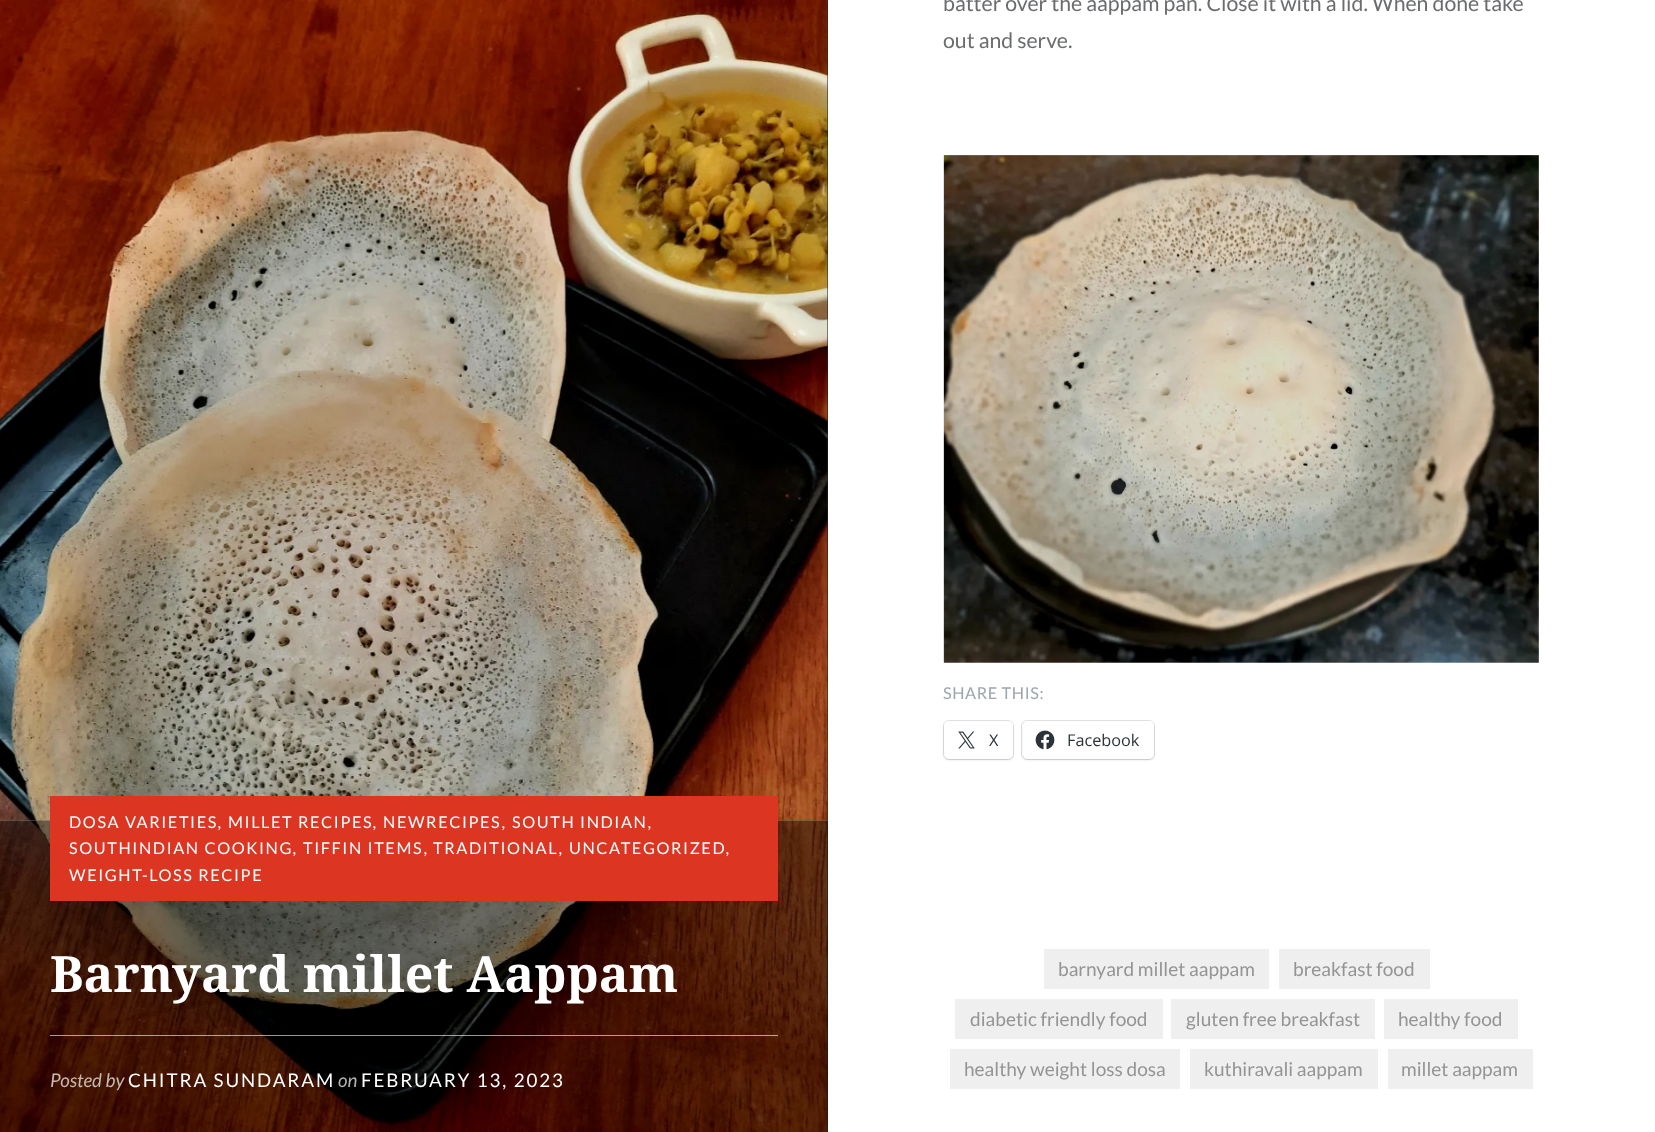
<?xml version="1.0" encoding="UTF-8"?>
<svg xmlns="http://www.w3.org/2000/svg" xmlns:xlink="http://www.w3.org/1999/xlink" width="1655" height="1132">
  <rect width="100%" height="100%" fill="#242629" />
  <rect x="828" width="827" height="1132" fill="#ffffff" />
  <image x="0" y="0" width="828" height="1132" xlink:href="image1.png" />
  <image x="943" y="155" width="596" height="508" xlink:href="image2.png" />
  <rect x="943.5" y="720.5" width="70" height="39" rx="5.5" fill="none" stroke="#e0e0e0" />
  <rect x="944" y="723" width="69" height="37" rx="5" fill="#000000" fill-opacity="0.12" filter="blur(1px)" />
  <rect x="944" y="721" width="69" height="38" rx="5" fill="#ffffff" />
  <image x="958" y="731" width="17" height="18" xlink:href="image3.png" />
  <rect x="1021.5" y="720.5" width="133" height="39" rx="5.5" fill="none" stroke="#e0e0e0" />
  <rect x="1023" y="723" width="131" height="37" rx="5" fill="#000000" fill-opacity="0.12" filter="blur(1px)" />
  <rect x="1023" y="721" width="131" height="38" rx="5" fill="#ffffff" />
  <image x="1035" y="730" width="20" height="20" xlink:href="image4.png" />
  <rect y="820" width="828" height="312" fill="#000000" fill-opacity="0.4" />
  <rect y="820" width="828" height="1" fill="#ffffff" fill-opacity="0.2" />
  <rect x="50" y="796" width="728" height="105" fill="#dc3522" />
  <rect x="50" y="1035" width="728" height="1" fill="#ffffff" fill-opacity="0.6" />
  <rect x="1044" y="949" width="225" height="40" fill="#efefef" />
  <rect x="1279" y="949" width="151" height="40" fill="#efefef" />
  <rect x="955" y="999" width="208" height="40" fill="#efefef" />
  <rect x="1171" y="999" width="204" height="40" fill="#efefef" />
  <rect x="1384" y="999" width="134" height="40" fill="#efefef" />
  <rect x="950" y="1049" width="230" height="40" fill="#efefef" />
  <rect x="1190" y="1049" width="188" height="40" fill="#efefef" />
  <rect x="1388" y="1049" width="145" height="40" fill="#efefef" />
  <text x="943" y="11" style="font-family: Lato; font-size: 21.25px; fill: #6a6c6e">batter over the aappam pan. Close it with a lid. When done take</text>
  <text x="943" y="48" style="font-family: Lato; font-size: 21.25px; fill: #6a6c6e">out and serve.</text>
  <text x="943" y="699" style="font-family: Lato; font-size: 16.25px; letter-spacing: 0.6px; fill: #9da5ad">SHARE THIS:</text>
  <text x="989" y="746" style="font-family: Open Sans; font-size: 16.25px; fill: #2c3338">X</text>
  <text x="1067" y="746" style="font-family: Open Sans; font-size: 16.25px; fill: #2c3338">Facebook</text>
  <text x="69" y="828" style="font-family: Lato; font-size: 16.25px; letter-spacing: 1.6px; fill: #ffffff">DOSA VARIETIES</text>
  <text x="218" y="828" style="font-family: Lato; font-size: 16.25px; font-style: italic; letter-spacing: 1.6px; fill: #ffffff">,</text>
  <text x="228" y="828" style="font-family: Lato; font-size: 16.25px; letter-spacing: 1.6px; fill: #ffffff">MILLET RECIPES</text>
  <text x="373" y="828" style="font-family: Lato; font-size: 16.25px; font-style: italic; letter-spacing: 1.6px; fill: #ffffff">,</text>
  <text x="383" y="828" style="font-family: Lato; font-size: 16.25px; letter-spacing: 1.6px; fill: #ffffff">NEWRECIPES</text>
  <text x="502" y="828" style="font-family: Lato; font-size: 16.25px; font-style: italic; letter-spacing: 1.6px; fill: #ffffff">,</text>
  <text x="512" y="828" style="font-family: Lato; font-size: 16.25px; letter-spacing: 1.6px; fill: #ffffff">SOUTH INDIAN</text>
  <text x="648" y="828" style="font-family: Lato; font-size: 16.25px; font-style: italic; letter-spacing: 1.6px; fill: #ffffff">,</text>
  <text x="69" y="854" style="font-family: Lato; font-size: 16.25px; letter-spacing: 1.6px; fill: #ffffff">SOUTHINDIAN COOKING</text>
  <text x="293" y="854" style="font-family: Lato; font-size: 16.25px; font-style: italic; letter-spacing: 1.6px; fill: #ffffff">,</text>
  <text x="303" y="854" style="font-family: Lato; font-size: 16.25px; letter-spacing: 1.6px; fill: #ffffff">TIFFIN ITEMS</text>
  <text x="424" y="854" style="font-family: Lato; font-size: 16.25px; font-style: italic; letter-spacing: 1.6px; fill: #ffffff">,</text>
  <text x="433" y="854" style="font-family: Lato; font-size: 16.25px; letter-spacing: 1.6px; fill: #ffffff">TRADITIONAL</text>
  <text x="559" y="854" style="font-family: Lato; font-size: 16.25px; font-style: italic; letter-spacing: 1.6px; fill: #ffffff">,</text>
  <text x="569" y="854" style="font-family: Lato; font-size: 16.25px; letter-spacing: 1.6px; fill: #ffffff">UNCATEGORIZED</text>
  <text x="726" y="854" style="font-family: Lato; font-size: 16.25px; font-style: italic; letter-spacing: 1.6px; fill: #ffffff">,</text>
  <text x="69" y="881" style="font-family: Lato; font-size: 16.25px; letter-spacing: 1.6px; fill: #ffffff">WEIGHT-LOSS RECIPE</text>
  <text x="50" y="992" style="font-family: Noto Serif; font-size: 50px; font-weight: bold; fill: #ffffff">Barnyard millet Aappam</text>
  <text x="50" y="1087" style="font-family: Lato; font-size: 18.75px; font-style: italic; fill: #c6b8b3">Posted by</text>
  <text x="128" y="1087" style="font-family: Lato; font-size: 18.75px; letter-spacing: 1.9px; fill: #ffffff">CHITRA SUNDARAM</text>
  <text x="338" y="1087" style="font-family: Lato; font-size: 18.75px; font-style: italic; fill: #b3b3b3">on</text>
  <text x="361" y="1087" style="font-family: Lato; font-size: 18.75px; letter-spacing: 1.9px; fill: #ffffff">FEBRUARY 13, 2023</text>
  <text x="1058" y="976" style="font-family: Lato; font-size: 19.1px; fill: #949494">barnyard millet aappam</text>
  <text x="1293" y="976" style="font-family: Lato; font-size: 19.1px; fill: #949494">breakfast food</text>
  <text x="970" y="1026" style="font-family: Lato; font-size: 19.1px; fill: #949494">diabetic friendly food</text>
  <text x="1186" y="1026" style="font-family: Lato; font-size: 19.1px; fill: #949494">gluten free breakfast</text>
  <text x="1398" y="1026" style="font-family: Lato; font-size: 19.1px; fill: #949494">healthy food</text>
  <text x="964" y="1076" style="font-family: Lato; font-size: 19.1px; fill: #949494">healthy weight loss dosa</text>
  <text x="1204" y="1076" style="font-family: Lato; font-size: 19.1px; fill: #949494">kuthiravali aappam</text>
  <text x="1401" y="1076" style="font-family: Lato; font-size: 19.1px; fill: #949494">millet aappam</text>
</svg>
